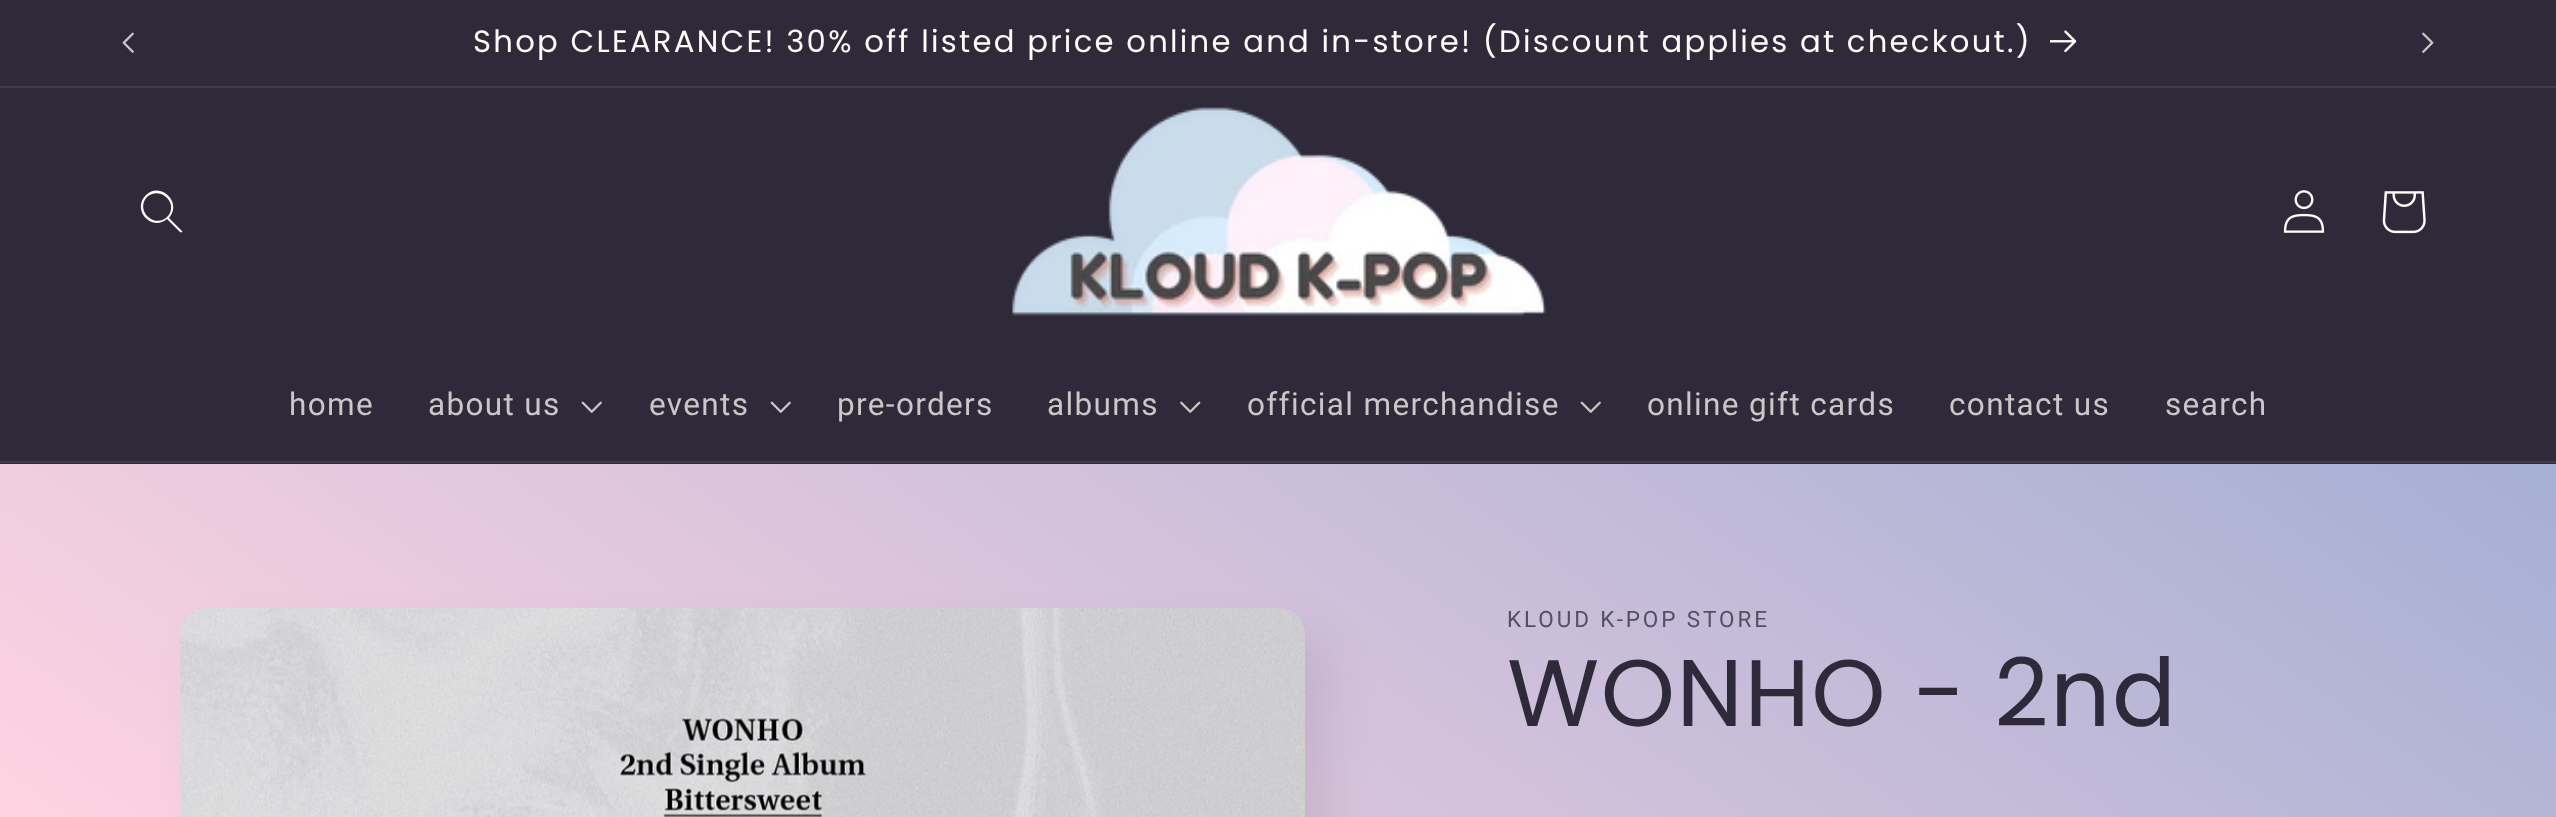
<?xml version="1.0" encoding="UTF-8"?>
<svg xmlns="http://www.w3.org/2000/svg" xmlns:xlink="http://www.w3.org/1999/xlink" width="2556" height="817">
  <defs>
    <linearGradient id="g1" gradientUnits="userSpaceOnUse" x1="665" y1="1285" x2="1891" y2="-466"><stop offset="0" stop-color="#ffd3e2" /><stop offset="1" stop-color="#92a8d1" /></linearGradient>
  </defs>
  <rect width="100%" height="100%" fill="#ffffff" />
  <rect y="464" width="2556" height="353" fill="url(#g1)" />
  <rect width="2556" height="86" fill="#2e2a39" />
  <rect y="86" width="2556" height="2" fill="#3f3b48" />
  <image x="122" y="32" width="12" height="21" xlink:href="image1.png" />
  <image x="2050" y="30" width="27" height="23" xlink:href="image2.png" />
  <image x="2422" y="32" width="12" height="21" xlink:href="image3.png" />
  <rect y="88" width="2556" height="376" fill="#2e2a39" />
  <rect y="461" width="2556" height="2" fill="#3f3b48" />
  <path d="M 167 217 c -13 12 -32 -7 -20 -20 c 13 -12 33 7 20 20 m 0 2 c -15 13 -36 -9 -21 -24 c 14 -14 37 7 23 23 l 13 13 c 1 1 -1 2 -2 1 z" fill="#fdfbf7" fill-rule="evenodd" />
  <image x="1012" y="107" width="535" height="209" xlink:href="image4.png" />
  <image x="2283" y="190" width="42" height="43" xlink:href="image5.png" />
  <image x="2382" y="191" width="44" height="43" xlink:href="image6.png" />
  <image x="581" y="401" width="21" height="12" xlink:href="image7.png" />
  <image x="770" y="401" width="21" height="12" xlink:href="image7.png" />
  <image x="1180" y="401" width="21" height="12" xlink:href="image8.png" />
  <image x="1580" y="401" width="21" height="12" xlink:href="image7.png" />
  <rect x="203" y="635" width="1125" height="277" rx="27" fill="#2e2a39" fill-opacity="0.1" filter="blur(22.5px)" />
  <image x="180" y="608" width="1125" height="209" xlink:href="image9.png" />
  <text x="473" y="52" style="font-family: Poppins; font-size: 30.7px; letter-spacing: 2.25px; fill: #fdfbf7">Shop CLEARANCE! 30% off listed price online and in-store! (Discount applies at checkout.)</text>
  <text x="289" y="415" style="font-family: Roboto; font-size: 31.5px; letter-spacing: 1.35px; fill: #c9c7c8">home</text>
  <text x="428" y="415" style="font-family: Roboto; font-size: 31.5px; letter-spacing: 1.35px; fill: #c9c7c8">about us</text>
  <text x="649" y="415" style="font-family: Roboto; font-size: 31.5px; letter-spacing: 1.35px; fill: #c9c7c8">events</text>
  <text x="837" y="415" style="font-family: Roboto; font-size: 31.5px; letter-spacing: 1.35px; fill: #c9c7c8">pre-orders</text>
  <text x="1047" y="415" style="font-family: Roboto; font-size: 31.5px; letter-spacing: 1.35px; fill: #c9c7c8">albums</text>
  <text x="1247" y="415" style="font-family: Roboto; font-size: 31.5px; letter-spacing: 1.35px; fill: #c9c7c8">official merchandise</text>
  <text x="1647" y="415" style="font-family: Roboto; font-size: 31.5px; letter-spacing: 1.35px; fill: #c9c7c8">online gift cards</text>
  <text x="1949" y="415" style="font-family: Roboto; font-size: 31.5px; letter-spacing: 1.35px; fill: #c9c7c8">contact us</text>
  <text x="2165" y="415" style="font-family: Roboto; font-size: 31.5px; letter-spacing: 1.35px; fill: #c9c7c8">search</text>
  <text x="1507" y="627" style="font-family: Roboto; font-size: 22.5px; letter-spacing: 2.9px; fill: #544f61">KLOUD K-POP STORE</text>
  <text x="1507" y="726" style="font-family: Poppins; font-size: 94.5px; letter-spacing: 1.5px; fill: #2e2a39">WONHO - 2nd</text>
</svg>
